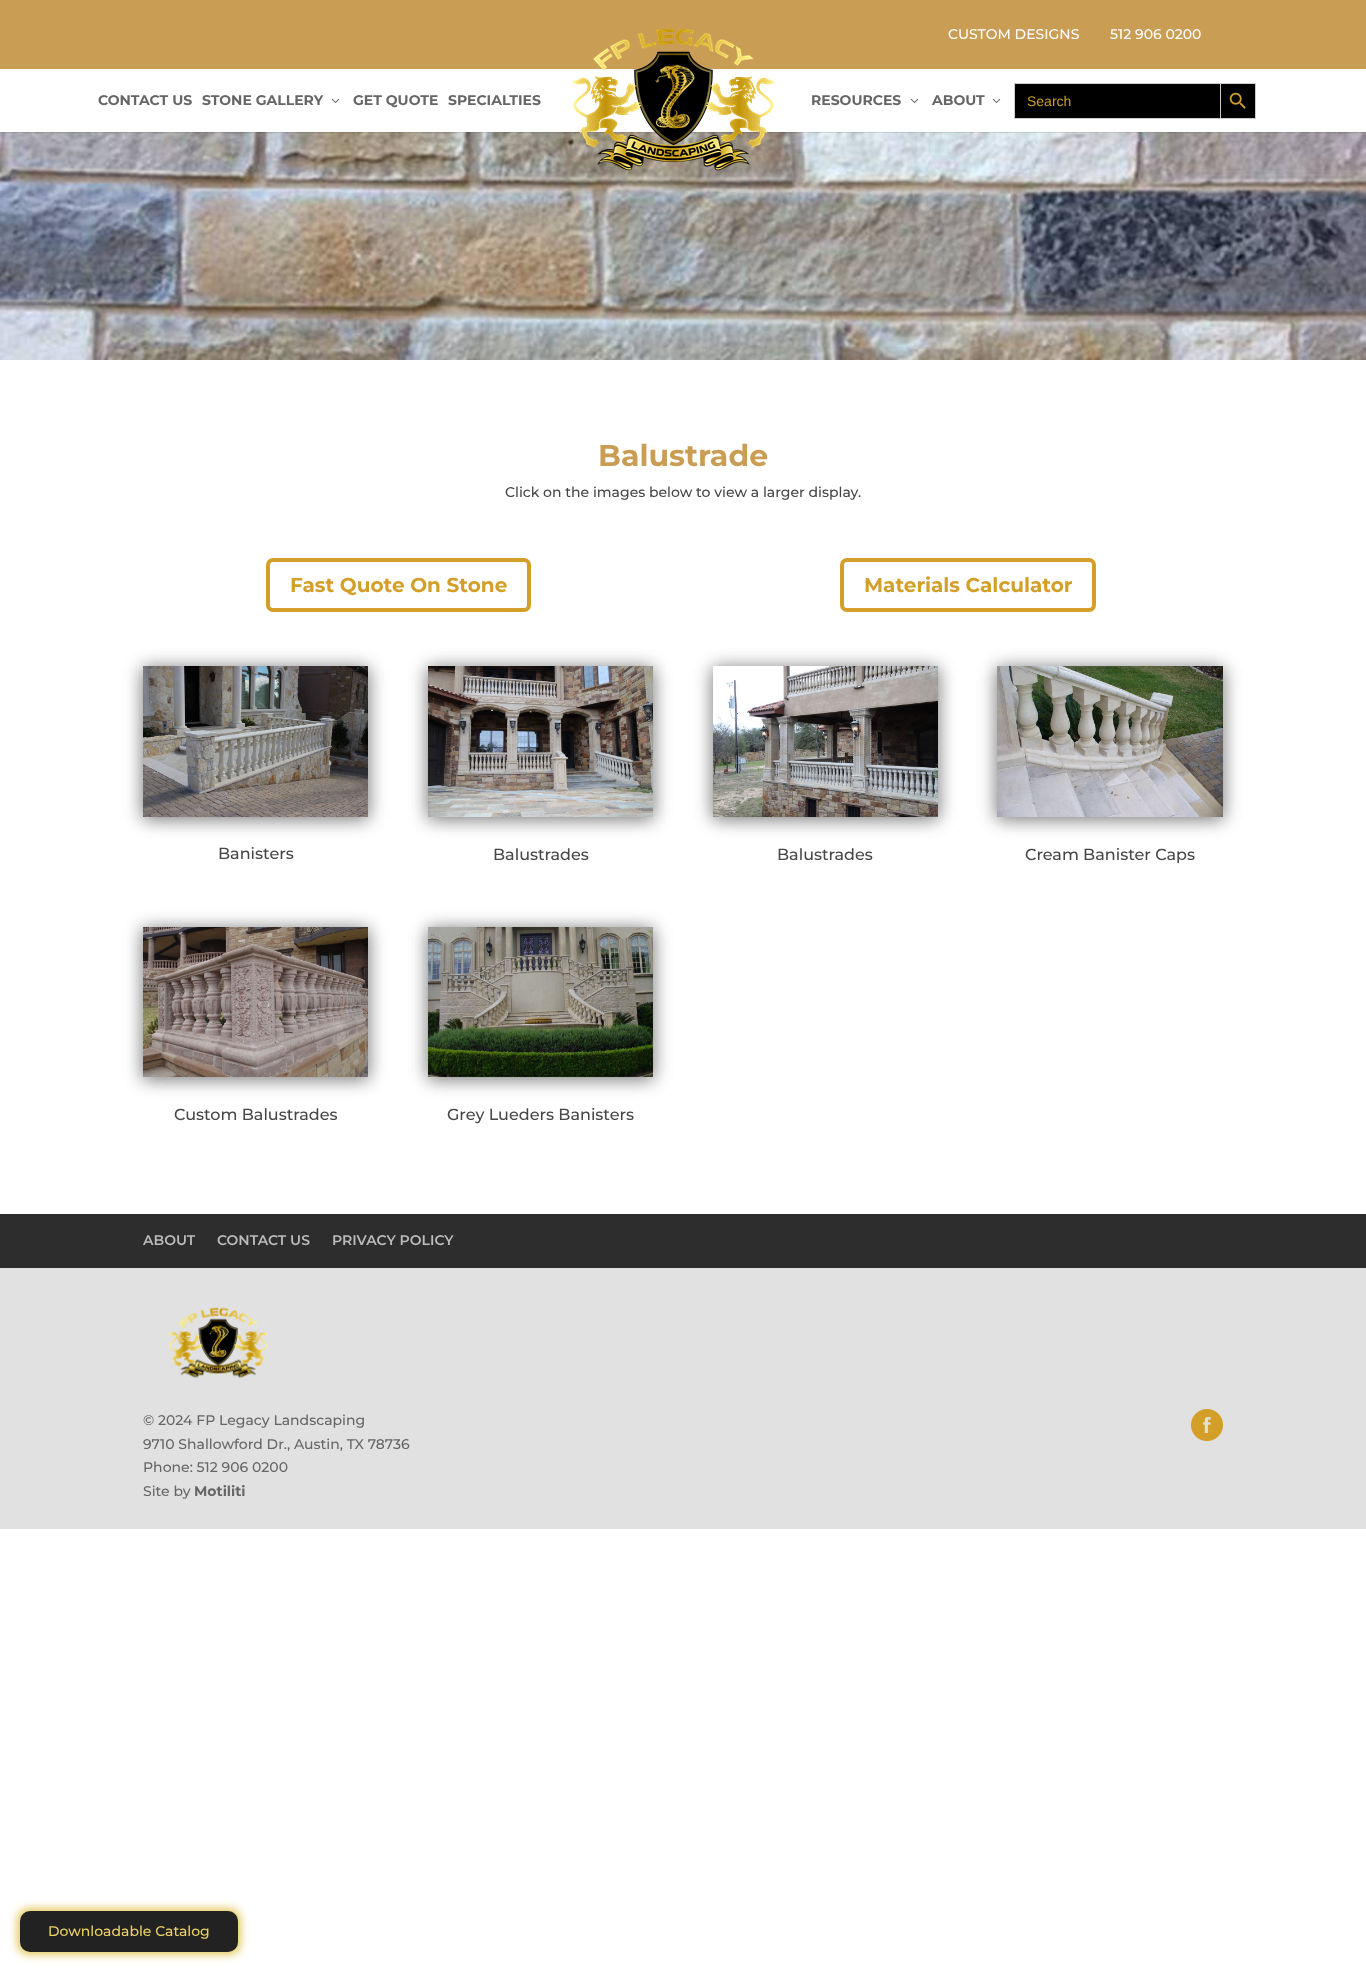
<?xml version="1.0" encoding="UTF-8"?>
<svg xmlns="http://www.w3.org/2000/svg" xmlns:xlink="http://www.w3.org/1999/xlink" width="1366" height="1972">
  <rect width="100%" height="100%" fill="#ffffff" />
  <image x="0" y="132" width="1366" height="228" xlink:href="image4.png" />
  <rect y="132" width="1366" height="1" fill="#000000" fill-opacity="0.1" />
  <rect width="1366" height="69" fill="#ca9d55" />
  <image x="331" y="98" width="9" height="5" xlink:href="image1.png" />
  <image x="572" y="28" width="203" height="143" xlink:href="image2.png" />
  <image x="910" y="98" width="9" height="5" xlink:href="image1.png" />
  <image x="992" y="98" width="9" height="5" xlink:href="image1.png" />
  <rect x="1015" y="84" width="205" height="34" fill="#000000" />
  <rect x="1014" y="83" width="206" height="1" fill="#cccccc" />
  <rect x="1014" y="118" width="206" height="1" fill="#cccccc" />
  <rect x="1014" y="83" width="1" height="36" fill="#cccccc" />
  <rect x="1220.5" y="83.5" width="35" height="35" fill="#000000" stroke="#cccccc" />
  <image x="1229" y="92" width="17" height="17" xlink:href="image3.png" />
  <rect x="268" y="560" width="261" height="50" rx="5" fill="none" stroke="#d39f29" stroke-width="4" />
  <rect x="842" y="560" width="252" height="50" rx="5" fill="none" stroke="#d39f29" stroke-width="4" />
  <rect x="143" y="668" width="225" height="151" fill="#000000" fill-opacity="0.3" filter="blur(9px)" />
  <rect x="143" y="668" width="225" height="151" fill="#000000" fill-opacity="0.3" filter="blur(9px)" />
  <image x="143" y="666" width="225" height="151" xlink:href="image5.png" />
  <rect x="428" y="668" width="225" height="151" fill="#000000" fill-opacity="0.3" filter="blur(9px)" />
  <rect x="428" y="668" width="225" height="151" fill="#000000" fill-opacity="0.3" filter="blur(9px)" />
  <image x="428" y="666" width="225" height="151" xlink:href="image6.png" />
  <rect x="713" y="668" width="225" height="151" fill="#000000" fill-opacity="0.3" filter="blur(9px)" />
  <rect x="713" y="668" width="225" height="151" fill="#000000" fill-opacity="0.3" filter="blur(9px)" />
  <image x="713" y="666" width="225" height="151" xlink:href="image7.png" />
  <rect x="997" y="668" width="226" height="151" fill="#000000" fill-opacity="0.3" filter="blur(9px)" />
  <rect x="997" y="668" width="226" height="151" fill="#000000" fill-opacity="0.3" filter="blur(9px)" />
  <image x="997" y="666" width="226" height="151" xlink:href="image8.png" />
  <rect x="143" y="929" width="225" height="150" fill="#000000" fill-opacity="0.3" filter="blur(9px)" />
  <rect x="143" y="929" width="225" height="150" fill="#000000" fill-opacity="0.3" filter="blur(9px)" />
  <image x="143" y="927" width="225" height="150" xlink:href="image9.png" />
  <rect x="428" y="929" width="225" height="150" fill="#000000" fill-opacity="0.3" filter="blur(9px)" />
  <rect x="428" y="929" width="225" height="150" fill="#000000" fill-opacity="0.3" filter="blur(9px)" />
  <image x="428" y="927" width="225" height="150" xlink:href="image10.png" />
  <rect y="1214" width="1366" height="54" fill="#2d2d2d" />
  <rect y="1268" width="1366" height="261" fill="#e1e1e1" />
  <image x="168" y="1307" width="101" height="72" xlink:href="image11.png" />
  <image x="1191" y="1409" width="32" height="32" xlink:href="image12.png" />
  <rect x="18" y="1909" width="222" height="45" rx="10" fill="#dfc042" filter="blur(5px)" />
  <rect x="20" y="1911" width="218" height="41" rx="10" fill="#222222" />
  <text x="948" y="39" style="font-family: Montserrat; font-size: 14px; font-weight: 500; fill: #ffffff">CUSTOM DESIGNS</text>
  <text x="1110" y="39" style="font-family: Montserrat; font-size: 14px; font-weight: 500; fill: #ffffff">512 906 0200</text>
  <text x="98" y="105" style="font-family: Montserrat; font-size: 14px; font-weight: bold; fill: #666666">CONTACT US</text>
  <text x="202" y="105" style="font-family: Montserrat; font-size: 14px; font-weight: bold; fill: #666666">STONE GALLERY</text>
  <text x="353" y="105" style="font-family: Montserrat; font-size: 14px; font-weight: bold; fill: #666666">GET QUOTE</text>
  <text x="448" y="105" style="font-family: Montserrat; font-size: 14px; font-weight: bold; fill: #666666">SPECIALTIES</text>
  <text x="811" y="105" style="font-family: Montserrat; font-size: 14px; font-weight: bold; fill: #666666">RESOURCES</text>
  <text x="932" y="105" style="font-family: Montserrat; font-size: 14px; font-weight: bold; fill: #666666">ABOUT</text>
  <text x="1027" y="106" style="font-family: Liberation Sans; font-size: 14px; fill: #cc9f29">Search</text>
  <text x="598" y="466" style="font-family: Montserrat; font-size: 30px; font-weight: bold; fill: #ca9d55">Balustrade</text>
  <text x="505" y="497" style="font-family: Montserrat; font-size: 14px; font-weight: 500; fill: #464646">Click on the images below to view a larger display.</text>
  <text x="290" y="592" style="font-family: Montserrat; font-size: 20px; font-weight: bold; fill: #d39f29">Fast Quote On Stone</text>
  <text x="864" y="592" style="font-family: Montserrat; font-size: 20px; font-weight: bold; fill: #d39f29">Materials Calculator</text>
  <text x="218" y="859" style="font-family: Montserrat; font-size: 16px; font-weight: 500; fill: #464646">Banisters</text>
  <text x="493" y="860" style="font-family: Montserrat; font-size: 16px; font-weight: 500; fill: #464646">Balustrades</text>
  <text x="777" y="860" style="font-family: Montserrat; font-size: 16px; font-weight: 500; fill: #464646">Balustrades</text>
  <text x="1025" y="860" style="font-family: Montserrat; font-size: 16px; font-weight: 500; fill: #464646">Cream Banister Caps</text>
  <text x="174" y="1120" style="font-family: Montserrat; font-size: 16px; font-weight: 500; fill: #464646">Custom Balustrades</text>
  <text x="447" y="1120" style="font-family: Montserrat; font-size: 16px; font-weight: 500; fill: #464646">Grey Lueders Banisters</text>
  <text x="143" y="1245" style="font-family: Montserrat; font-size: 14px; font-weight: 600; fill: #bbbbbb">ABOUT</text>
  <text x="217" y="1245" style="font-family: Montserrat; font-size: 14px; font-weight: 600; fill: #bbbbbb">CONTACT US</text>
  <text x="332" y="1245" style="font-family: Montserrat; font-size: 14px; font-weight: 600; fill: #bbbbbb">PRIVACY POLICY</text>
  <text x="143" y="1425" style="font-family: Montserrat; font-size: 14px; font-weight: 500; fill: #666666">© 2024 FP Legacy Landscaping</text>
  <text x="143" y="1449" style="font-family: Montserrat; font-size: 14px; font-weight: 500; fill: #666666">9710 Shallowford Dr., Austin, TX 78736</text>
  <text x="143" y="1472" style="font-family: Montserrat; font-size: 14px; font-weight: 500; fill: #666666">Phone: 512 906 0200</text>
  <text x="143" y="1496" style="font-family: Montserrat; font-size: 14px; font-weight: 500; fill: #666666">Site by</text>
  <text x="194" y="1496" style="font-family: Montserrat; font-size: 14px; font-weight: bold; fill: #666666">Motiliti</text>
  <text x="48" y="1936" style="font-family: Montserrat; font-size: 14px; font-weight: 500; fill: #ecd162">Downloadable Catalog</text>
</svg>
